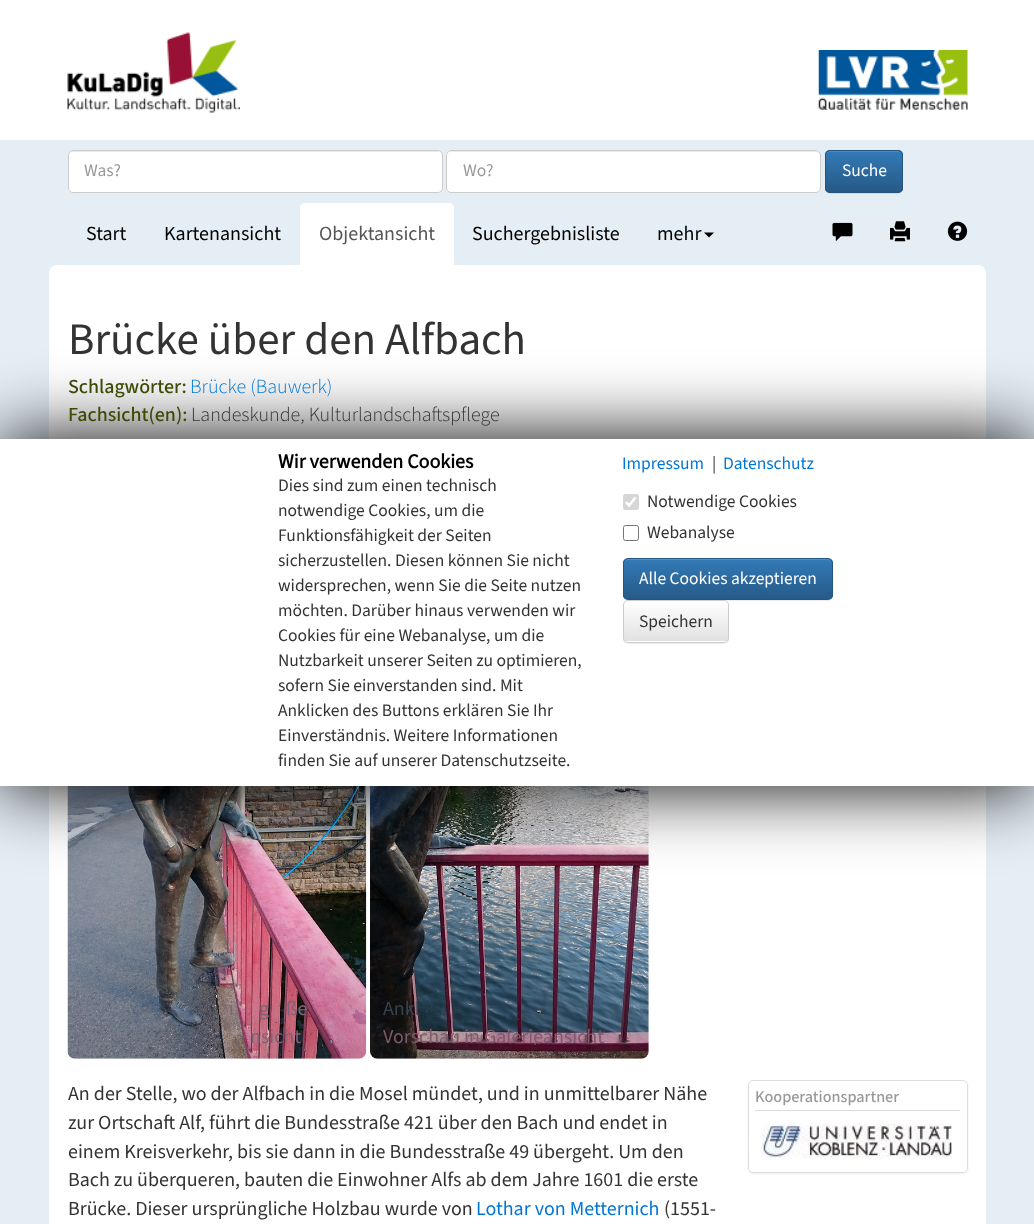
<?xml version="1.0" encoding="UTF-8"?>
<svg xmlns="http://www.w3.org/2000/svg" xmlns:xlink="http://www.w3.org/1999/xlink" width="1034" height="1224">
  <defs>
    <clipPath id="clip1"><rect x="825" y="150" width="78" height="43" rx="5" /></clipPath>
    <linearGradient id="g1" gradientUnits="userSpaceOnUse" x1="864" y1="151" x2="864" y2="191"><stop offset="0" stop-color="#337ab7" /><stop offset="1" stop-color="#265a88" /></linearGradient>
    <clipPath id="clip2"><path d="M 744 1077 h 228 v 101 h -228 z m 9 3 h 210 c 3 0 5 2 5 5 v 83 c 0 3 -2 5 -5 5 h -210 c -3 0 -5 -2 -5 -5 v -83 c 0 -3 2 -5 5 -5 z" clip-rule="evenodd" /></clipPath>
    <clipPath id="clip3"><rect x="623" y="558" width="210" height="42" rx="5" /></clipPath>
    <linearGradient id="g2" gradientUnits="userSpaceOnUse" x1="728" y1="559" x2="728" y2="599"><stop offset="0" stop-color="#337ab7" /><stop offset="1" stop-color="#265a88" /></linearGradient>
    <clipPath id="clip4"><rect x="623" y="600" width="106" height="43" rx="5" /></clipPath>
    <linearGradient id="g3" gradientUnits="userSpaceOnUse" x1="676" y1="602" x2="676" y2="642"><stop offset="0" stop-color="#ffffff" /><stop offset="1" stop-color="#e0e0e0" /></linearGradient>
  </defs>
  <rect width="100%" height="100%" fill="#e5eef5" />
  <rect width="1034" height="140" fill="#ffffff" />
  <image x="67" y="32" width="173" height="81" xlink:href="image1.png" />
  <image x="818" y="50" width="150" height="60" xlink:href="image2.png" />
  <rect x="68" y="150" width="375" height="43" rx="5" fill="#ffffff" />
  <path d="M 72 152 h 366 c 2 0 3 2 3 4 c 0 -3 -1 -5 -4 -5 h -364 c -3 0 -4 2 -4 5 c 0 -2 1 -4 3 -4 z" fill="#ececec" />
  <rect x="68.5" y="150.5" width="374" height="42" rx="4.5" fill="none" stroke="#cccccc" />
  <rect x="446" y="150" width="375" height="43" rx="5" fill="#ffffff" />
  <path d="M 451 152 h 365 c 2 0 4 2 4 4 c 0 -3 -1 -5 -4 -5 h -364 c -3 0 -4 2 -4 5 c 0 -2 1 -4 3 -4 z" fill="#ececec" />
  <rect x="446.5" y="150.5" width="374" height="42" rx="4.5" fill="none" stroke="#cccccc" />
  <rect x="825" y="151" width="78" height="43" rx="5" fill="#000000" fill-opacity="0.07" filter="blur(0.5px)" />
  <rect x="825" y="150" width="78" height="43" rx="5" fill="#265986" />
  <g clip-path="url(#clip1)">
    <rect x="825" y="151" width="78" height="40" fill="url(#g1)" />
  </g>
  <path d="M 830 152 h 68 c 2 0 3 2 3 4 c 0 -8 -10 -5 -15 -5 h -45 c -5 0 -15 -3 -15 5 c 0 -2 2 -4 4 -4 z" fill="#ffffff" fill-opacity="0.15" />
  <rect x="825.5" y="150.5" width="77" height="42" rx="4.5" fill="none" stroke="#245580" />
  <path d="M 305 203 h 144 c 3 0 5 2 5 5 v 57 h -154 v -57 c 0 -3 2 -5 5 -5 z" fill="#ffffff" />
  <path d="M 704 232.5 h 10 l -5 5 z" fill="#000000" />
  <image x="832" y="222" width="21" height="20" xlink:href="image3.png" />
  <image x="890" y="221" width="20" height="21" xlink:href="image4.png" />
  <image x="947" y="221" width="21" height="20" xlink:href="image5.png" />
  <rect x="49" y="265" width="937" height="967" rx="8" fill="#ffffff" />
  <image x="67" y="786" width="300" height="273" xlink:href="image6.png" />
  <image x="370" y="786" width="279" height="273" xlink:href="image7.png" />
  <g clip-path="url(#clip2)">
    <rect x="748" y="1081" width="220" height="93" rx="5" fill="#000000" fill-opacity="0.07" filter="blur(1px)" />
  </g>
  <rect x="748.5" y="1080.5" width="219" height="92" rx="4.5" fill="none" stroke="#dddddd" />
  <rect x="755" y="1110" width="205" height="1" fill="#dddddd" />
  <image x="761" y="1123" width="191" height="36" xlink:href="image8.png" />
  <rect y="439" width="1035" height="347" fill="#000000" filter="blur(37.5px)" />
  <rect y="439" width="1034" height="347" fill="#ffffff" />
  <rect x="623" y="494" width="16" height="16" rx="2.5" fill="#d6d6d6" />
  <path d="M 626 502 l 3 3.5 l 6.5 -8" fill="none" stroke="#ffffff" stroke-width="2.6" />
  <rect x="623.5" y="525.5" width="15" height="15" rx="2" fill="none" stroke="#767676" />
  <rect x="623" y="559" width="210" height="42" rx="5" fill="#000000" fill-opacity="0.07" filter="blur(0.5px)" />
  <g clip-path="url(#clip3)">
    <rect x="623" y="559" width="210" height="40" fill="url(#g2)" />
  </g>
  <path d="M 628 560 h 200 c 2 0 3 2 3 4 v -1 c 0 -2 -2 -4 -4 -4 h -199 c -2 0 -4 2 -4 4 v 1 c 0 -2 1 -4 4 -4 z" fill="#528ec1" />
  <rect x="623.5" y="558.5" width="209" height="41" rx="4.5" fill="none" stroke="#245580" />
  <rect x="623" y="601" width="106" height="43" rx="5" fill="#000000" fill-opacity="0.07" filter="blur(0.5px)" />
  <rect x="623" y="600" width="106" height="43" rx="5" fill="#ffffff" />
  <g clip-path="url(#clip4)">
    <rect x="623" y="601" width="106" height="40" fill="url(#g3)" />
  </g>
  <rect x="623.5" y="600.5" width="105" height="42" rx="4.5" fill="none" stroke="#cccccc" />
  <text x="84" y="176" style="font-family: 'Source Sans 3'; font-size: 17.5px; fill: #999999">Was?</text>
  <text x="463" y="176" style="font-family: 'Source Sans 3'; font-size: 17.5px; fill: #999999">Wo?</text>
  <text x="842" y="176" style="font-family: 'Source Sans 3'; font-size: 17.5px; fill: #ffffff">Suche</text>
  <text x="86" y="240" style="font-family: 'Source Sans 3'; font-size: 20px; fill: #000000">Start</text>
  <text x="164" y="240" style="font-family: 'Source Sans 3'; font-size: 20px; fill: #000000">Kartenansicht</text>
  <text x="319" y="240" style="font-family: 'Source Sans 3'; font-size: 20px; fill: #555555">Objektansicht</text>
  <text x="472" y="240" style="font-family: 'Source Sans 3'; font-size: 20px; fill: #000000">Suchergebnisliste</text>
  <text x="657" y="240" style="font-family: 'Source Sans 3'; font-size: 20px; fill: #000000">mehr</text>
  <text x="68" y="354" style="font-family: 'Source Sans 3'; font-size: 45px; fill: #333333">Brücke über den Alfbach</text>
  <text x="68" y="393" style="font-family: 'Source Sans 3'; font-size: 20px; font-weight: 500; fill: #3c4b05">Schlagwörter:</text>
  <text x="190" y="393" style="font-family: 'Source Sans 3'; font-size: 20px; font-weight: 300; fill: #0076d6">Brücke (Bauwerk)</text>
  <text x="68" y="421" style="font-family: 'Source Sans 3'; font-size: 20px; font-weight: 500; fill: #3c4b05">Fachsicht(en):</text>
  <text x="191" y="421" style="font-family: 'Source Sans 3'; font-size: 20px; font-weight: 300; fill: #333333">Landeskunde, Kulturlandschaftspflege</text>
  <text x="162" y="810" style="font-family: 'Source Sans 3'; font-size: 15px; fill: #434343">l</text>
  <text x="229" y="1015" style="font-family: 'Source Sans 3'; font-size: 20px; fill: #7c6474">i</text>
  <text x="259" y="1015" style="font-family: 'Source Sans 3'; font-size: 20px; fill: #7c6474">g</text>
  <text x="286" y="1015" style="font-family: 'Source Sans 3'; font-size: 20px; fill: #7c6474">ße</text>
  <text x="250" y="1043" style="font-family: 'Source Sans 3'; font-size: 20px; fill: #7c6474">nsicht</text>
  <text x="387" y="810" style="font-family: 'Source Sans 3'; font-size: 15px; font-weight: bold; fill: #2b343d">e</text>
  <text x="383" y="1015" style="font-family: 'Source Sans 3'; font-size: 20px; fill: #354254">Ankl</text>
  <text x="383" y="1043" style="font-family: 'Source Sans 3'; font-size: 20px; fill: #7e5a6b">Vorschau in Galerieansicht</text>
  <text x="68" y="1100" style="font-family: 'Source Sans 3'; font-size: 20px; fill: #333333">An der Stelle, wo der Alfbach in die Mosel mündet, und in unmittelbarer Nähe</text>
  <text x="755" y="1102" style="font-family: 'Source Sans 3'; font-size: 16.25px; font-weight: 500; fill: #999999">Kooperationspartner</text>
  <text x="68" y="1129" style="font-family: 'Source Sans 3'; font-size: 20px; fill: #333333">zur Ortschaft Alf, führt die Bundesstraße 421 über den Bach und endet in</text>
  <text x="68" y="1158" style="font-family: 'Source Sans 3'; font-size: 20px; fill: #333333">einem Kreisverkehr, bis sie dann in die Bundesstraße 49 übergeht. Um den</text>
  <text x="68" y="1186" style="font-family: 'Source Sans 3'; font-size: 20px; fill: #333333">Bach zu überqueren, bauten die Einwohner Alfs ab dem Jahre 1601 die erste</text>
  <text x="68" y="1215" style="font-family: 'Source Sans 3'; font-size: 20px; fill: #333333">Brücke. Dieser ursprüngliche Holzbau wurde von</text>
  <text x="476" y="1215" style="font-family: 'Source Sans 3'; font-size: 20px; fill: #0076d6">Lothar von Metternich</text>
  <text x="664" y="1215" style="font-family: 'Source Sans 3'; font-size: 20px; fill: #333333">(1551-</text>
  <text x="278" y="468" style="font-family: 'Source Sans 3'; font-size: 20px; font-weight: bold; fill: #000000">Wir verwenden Cookies</text>
  <text x="278" y="491" style="font-family: 'Source Sans 3'; font-size: 17.5px; fill: #333333">Dies sind zum einen technisch</text>
  <text x="278" y="516" style="font-family: 'Source Sans 3'; font-size: 17.5px; fill: #333333">notwendige Cookies, um die</text>
  <text x="278" y="541" style="font-family: 'Source Sans 3'; font-size: 17.5px; fill: #333333">Funktionsfähigkeit der Seiten</text>
  <text x="278" y="566" style="font-family: 'Source Sans 3'; font-size: 17.5px; fill: #333333">sicherzustellen. Diesen können Sie nicht</text>
  <text x="278" y="591" style="font-family: 'Source Sans 3'; font-size: 17.5px; fill: #333333">widersprechen, wenn Sie die Seite nutzen</text>
  <text x="278" y="616" style="font-family: 'Source Sans 3'; font-size: 17.5px; fill: #333333">möchten. Darüber hinaus verwenden wir</text>
  <text x="278" y="641" style="font-family: 'Source Sans 3'; font-size: 17.5px; fill: #333333">Cookies für eine Webanalyse, um die</text>
  <text x="278" y="666" style="font-family: 'Source Sans 3'; font-size: 17.5px; fill: #333333">Nutzbarkeit unserer Seiten zu optimieren,</text>
  <text x="278" y="691" style="font-family: 'Source Sans 3'; font-size: 17.5px; fill: #333333">sofern Sie einverstanden sind. Mit</text>
  <text x="278" y="716" style="font-family: 'Source Sans 3'; font-size: 17.5px; fill: #333333">Anklicken des Buttons erklären Sie Ihr</text>
  <text x="278" y="741" style="font-family: 'Source Sans 3'; font-size: 17.5px; fill: #333333">Einverständnis. Weitere Informationen</text>
  <text x="278" y="766" style="font-family: 'Source Sans 3'; font-size: 17.5px; fill: #333333">finden Sie auf unserer Datenschutzseite.</text>
  <text x="622" y="469" style="font-family: 'Source Sans 3'; font-size: 17.5px; fill: #0076d6">Impressum</text>
  <text x="712" y="469" style="font-family: 'Source Sans 3'; font-size: 17.5px; fill: #333333">|</text>
  <text x="723" y="469" style="font-family: 'Source Sans 3'; font-size: 17.5px; fill: #0076d6">Datenschutz</text>
  <text x="647" y="507" style="font-family: 'Source Sans 3'; font-size: 17.5px; fill: #333333">Notwendige Cookies</text>
  <text x="647" y="538" style="font-family: 'Source Sans 3'; font-size: 17.5px; fill: #333333">Webanalyse</text>
  <text x="639" y="584" style="font-family: 'Source Sans 3'; font-size: 17.5px; fill: #ffffff">Alle Cookies akzeptieren</text>
  <text x="639" y="627" style="font-family: 'Source Sans 3'; font-size: 17.5px; fill: #333333">Speichern</text>
</svg>
